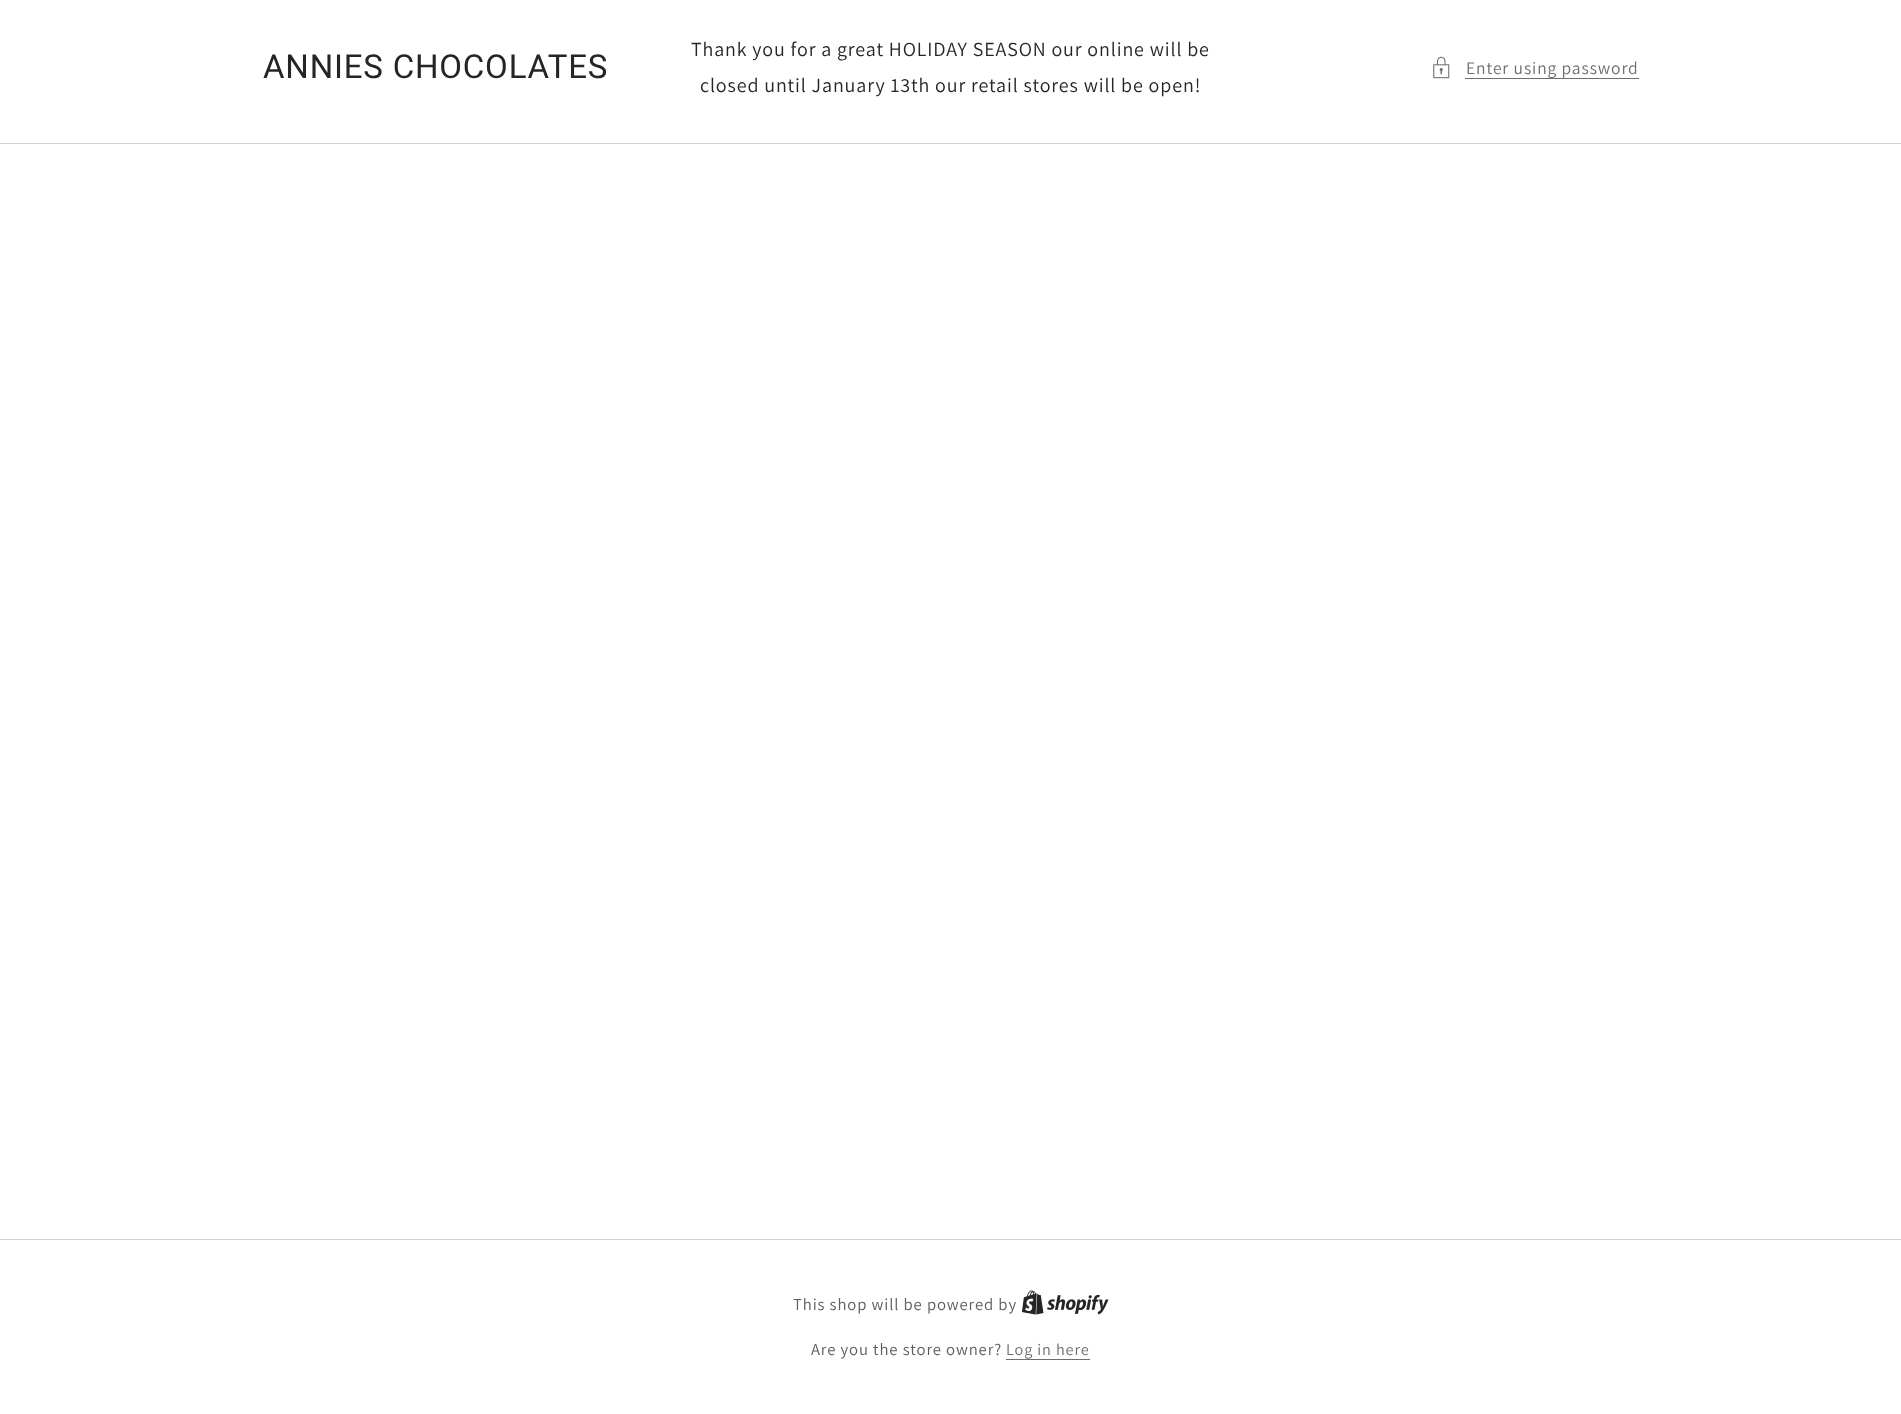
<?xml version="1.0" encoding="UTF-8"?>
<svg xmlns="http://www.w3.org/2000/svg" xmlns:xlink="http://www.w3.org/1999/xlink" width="1901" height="1414">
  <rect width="100%" height="100%" fill="#ffffff" />
  <image x="1433" y="56" width="17" height="23" xlink:href="image1.png" />
  <rect x="1465" y="78" width="174" height="1" fill="#6a6f6f" />
  <rect y="143" width="1901" height="1" fill="#d3d3d3" />
  <rect y="1239" width="1901" height="1" fill="#d3d3d3" />
  <image x="1022" y="1290" width="87" height="25" xlink:href="image2.png" />
  <rect x="1006" y="1359" width="84" height="1" fill="#6a6f6f" />
  <text x="263" y="78" style="font-family: Roboto; font-size: 33px; letter-spacing: 0.8px; fill: #252525">ANNIES CHOCOLATES</text>
  <text x="691" y="56" style="font-family: Assistant; font-size: 20px; letter-spacing: 0.88px; fill: #252525">Thank you for a great HOLIDAY SEASON our online will be</text>
  <text x="700" y="92" style="font-family: Assistant; font-size: 20px; letter-spacing: 0.88px; fill: #252525">closed until January 13th our retail stores will be open!</text>
  <text x="1466" y="74" style="font-family: Assistant; font-size: 17.5px; letter-spacing: 0.88px; fill: #6a6f6f">Enter using password</text>
  <text x="793" y="1310" style="font-family: Assistant; font-size: 16.7px; letter-spacing: 0.88px; fill: #5c5c5c">This shop will be powered by</text>
  <text x="811" y="1355" style="font-family: Assistant; font-size: 16.7px; letter-spacing: 0.88px; fill: #5c5c5c">Are you the store owner?</text>
  <text x="1006" y="1355" style="font-family: Assistant; font-size: 16.25px; letter-spacing: 0.88px; fill: #6a6f6f">Log in here</text>
</svg>
